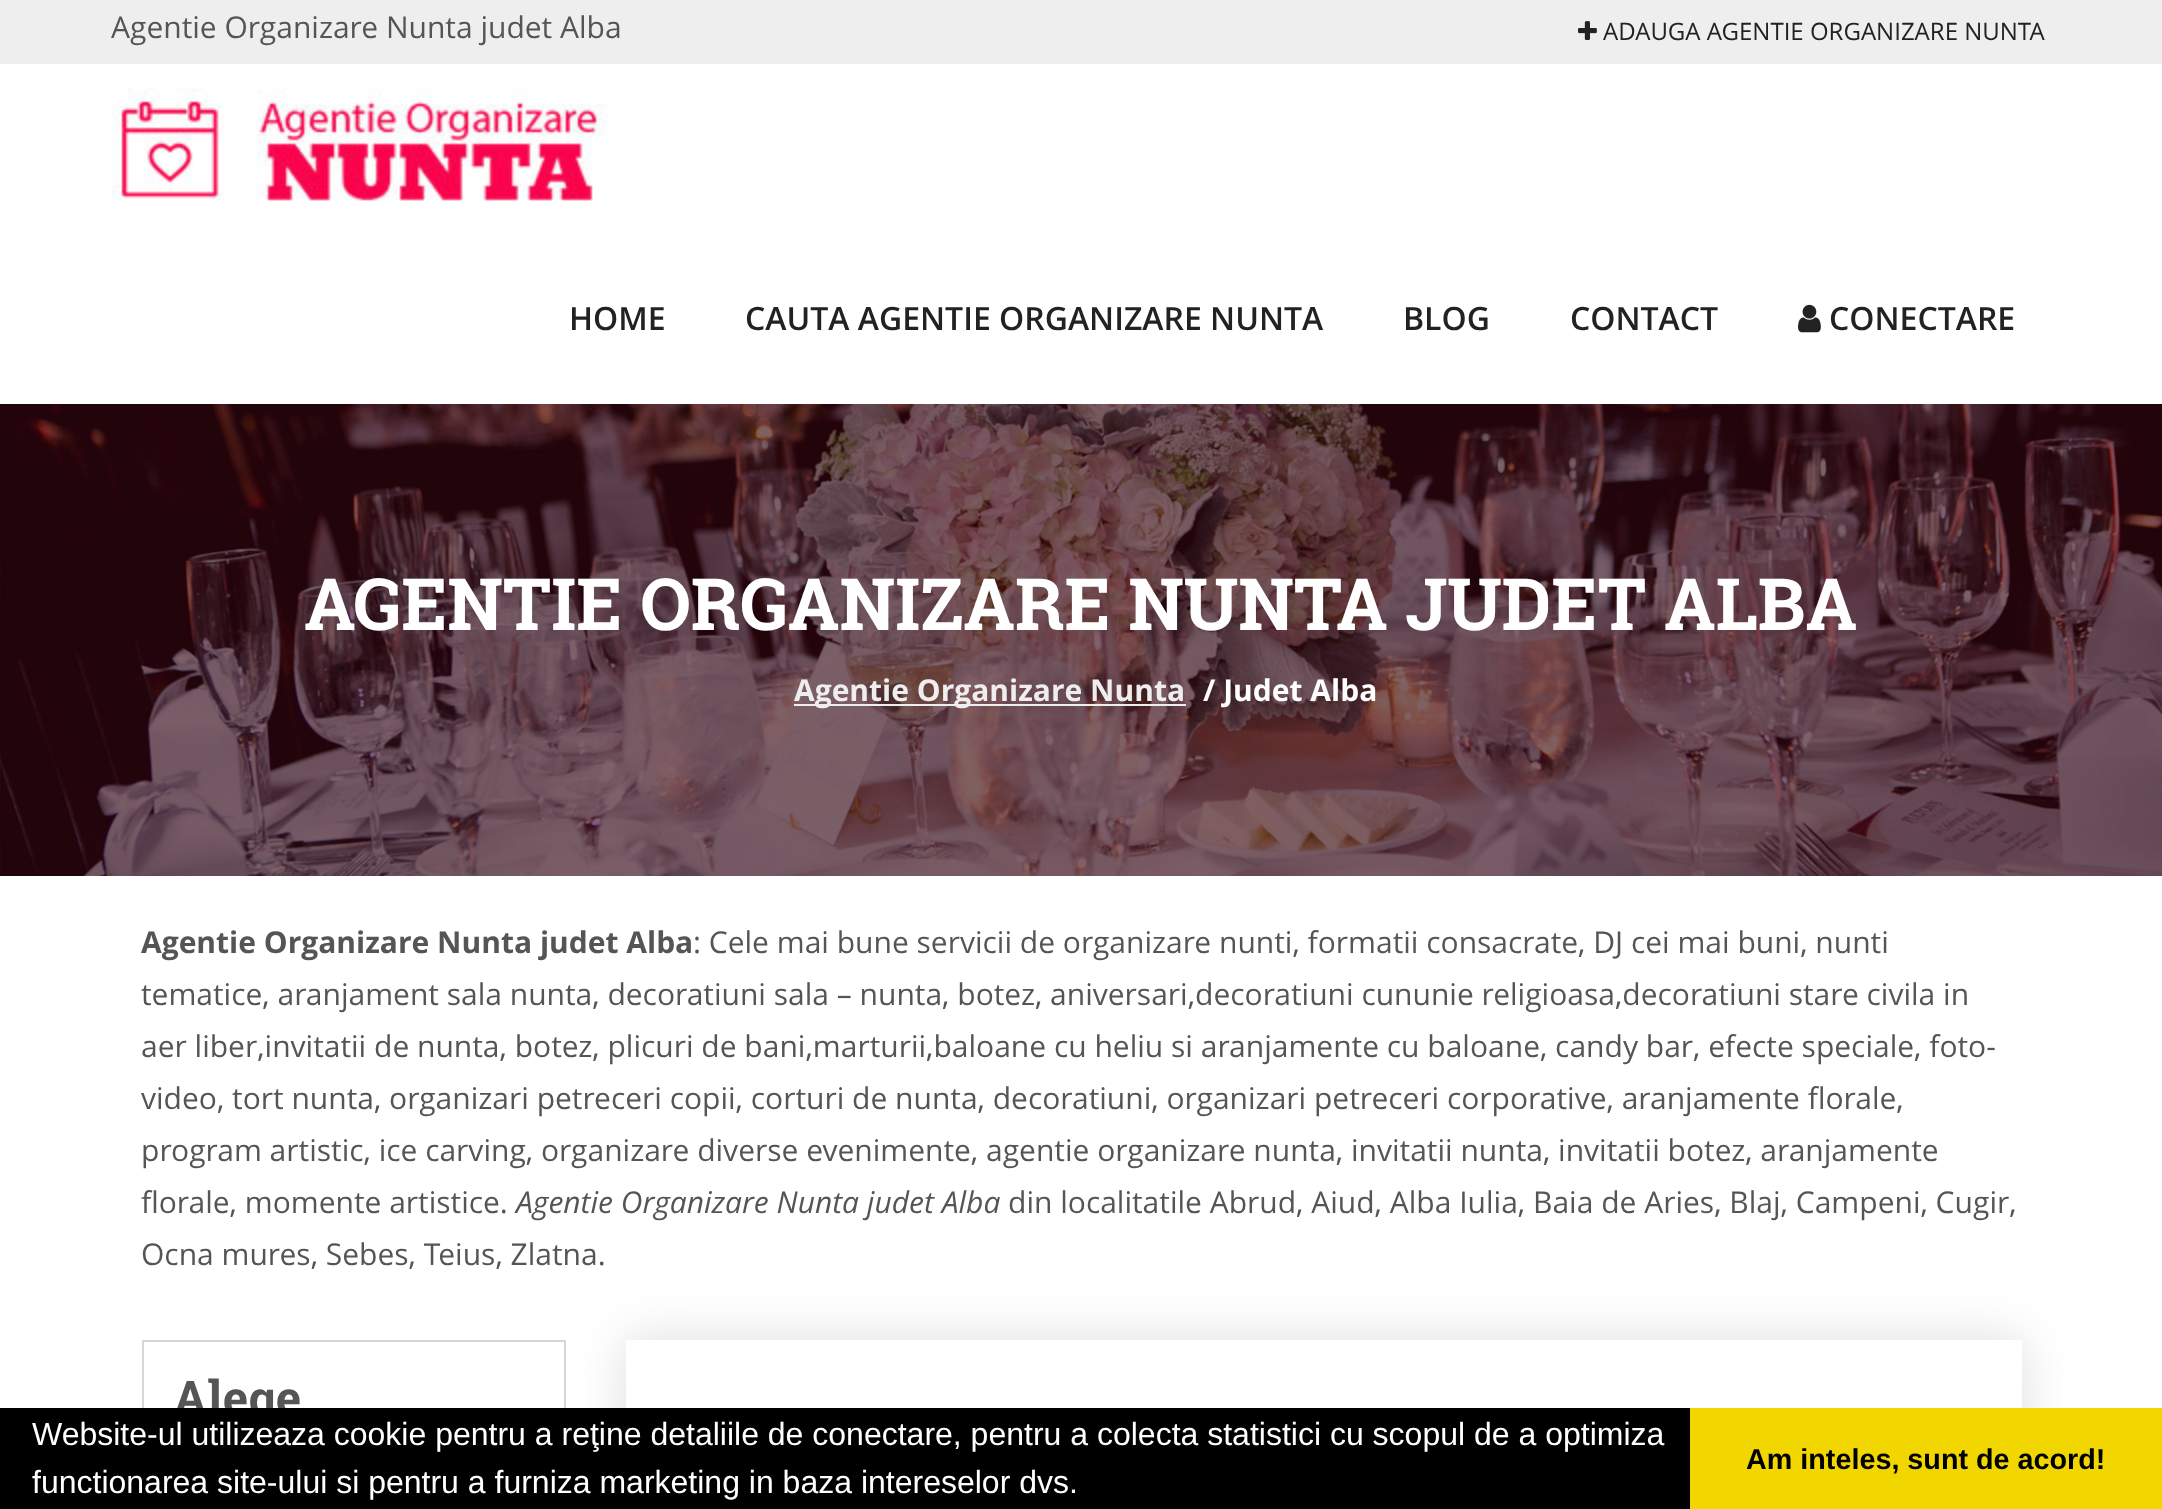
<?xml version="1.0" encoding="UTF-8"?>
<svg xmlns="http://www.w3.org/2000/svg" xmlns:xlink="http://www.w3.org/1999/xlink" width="2162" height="1509">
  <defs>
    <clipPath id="clip1"><path d="M 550 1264 h 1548 v 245 h -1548 z m 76 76 h 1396 v 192 h -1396 z" clip-rule="evenodd" /></clipPath>
  </defs>
  <rect width="100%" height="100%" fill="#ffffff" />
  <rect width="2162" height="64" fill="#eeeeee" />
  <image x="1578" y="21" width="19" height="19" xlink:href="image1.png" />
  <image x="112" y="88" width="496" height="113" xlink:href="image2.png" />
  <image x="1798" y="304" width="23" height="29" xlink:href="image3.png" />
  <image x="0" y="404" width="2162" height="472" xlink:href="image4.png" />
  <rect x="794" y="704" width="392" height="2" fill="#eeeeee" />
  <rect x="143" y="1341" width="422" height="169" fill="none" stroke="#d6d6d6" stroke-width="2" />
  <g clip-path="url(#clip1)">
    <rect x="626" y="1340" width="1396" height="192" fill="#dddddd" filter="blur(25px)" />
  </g>
  <rect x="1690" y="1408" width="472" height="101" fill="#f1d600" />
  <text x="111" y="38" style="font-family: Open Sans; font-size: 30px; fill: #555555">Agentie Organizare Nunta judet Alba</text>
  <text x="1603" y="40" style="font-family: Open Sans; font-size: 24px; fill: #222222">ADAUGA AGENTIE ORGANIZARE NUNTA</text>
  <text x="569" y="330" style="font-family: Open Sans; font-size: 32px; font-weight: 600; fill: #222222">HOME</text>
  <text x="745" y="330" style="font-family: Open Sans; font-size: 32px; font-weight: 600; fill: #222222">CAUTA AGENTIE ORGANIZARE NUNTA</text>
  <text x="1403" y="330" style="font-family: Open Sans; font-size: 32px; font-weight: 600; fill: #222222">BLOG</text>
  <text x="1570" y="330" style="font-family: Open Sans; font-size: 32px; font-weight: 600; fill: #222222">CONTACT</text>
  <text x="1829" y="330" style="font-family: Open Sans; font-size: 32px; font-weight: 600; fill: #222222">CONECTARE</text>
  <text x="304" y="630" style="font-family: Roboto Slab; font-size: 72px; font-weight: bold; fill: #ffffff">AGENTIE ORGANIZARE NUNTA JUDET ALBA</text>
  <text x="794" y="701" style="font-family: Open Sans; font-size: 30px; font-weight: bold; fill: #eeeeee">Agentie Organizare Nunta</text>
  <text x="1203" y="701" style="font-family: Open Sans; font-size: 30px; font-weight: bold; fill: #ffffff">/ Judet Alba</text>
  <text x="141" y="953" style="font-family: Open Sans; font-size: 30px; font-weight: bold; fill: #555555">Agentie Organizare Nunta judet Alba</text>
  <text x="693" y="953" style="font-family: Open Sans; font-size: 30px; fill: #555555">: Cele mai bune servicii de organizare nunti, formatii consacrate, DJ cei mai buni, nunti</text>
  <text x="141" y="1005" style="font-family: Open Sans; font-size: 30px; fill: #555555">tematice, aranjament sala nunta, decoratiuni sala – nunta, botez, aniversari,decoratiuni cununie religioasa,decoratiuni stare civila in</text>
  <text x="141" y="1057" style="font-family: Open Sans; font-size: 30px; fill: #555555">aer liber,invitatii de nunta, botez, plicuri de bani,marturii,baloane cu heliu si aranjamente cu baloane, candy bar, efecte speciale, foto-</text>
  <text x="141" y="1109" style="font-family: Open Sans; font-size: 30px; fill: #555555">video, tort nunta, organizari petreceri copii, corturi de nunta, decoratiuni, organizari petreceri corporative, aranjamente florale,</text>
  <text x="141" y="1161" style="font-family: Open Sans; font-size: 30px; fill: #555555">program artistic, ice carving, organizare diverse evenimente, agentie organizare nunta, invitatii nunta, invitatii botez, aranjamente</text>
  <text x="141" y="1213" style="font-family: Open Sans; font-size: 30px; fill: #555555">florale, momente artistice.</text>
  <text x="516" y="1213" style="font-family: Open Sans; font-size: 30px; font-style: italic; fill: #555555">Agentie Organizare Nunta judet Alba</text>
  <text x="1008" y="1213" style="font-family: Open Sans; font-size: 30px; fill: #555555">din localitatile Abrud, Aiud, Alba Iulia, Baia de Aries, Blaj, Campeni, Cugir,</text>
  <text x="141" y="1265" style="font-family: Open Sans; font-size: 30px; fill: #555555">Ocna mures, Sebes, Teius, Zlatna.</text>
  <text x="173" y="1415" style="font-family: Roboto Slab; font-size: 48px; font-weight: bold; fill: #555555">Alege</text>
  <rect y="1408" width="1690" height="101" fill="#000000" />
  <text x="32" y="1445" style="font-family: Liberation Sans; font-size: 32px; fill: #ffffff">Website-ul utilizeaza cookie pentru a reţine detaliile de conectare, pentru a colecta statistici cu scopul de a optimiza</text>
  <text x="32" y="1493" style="font-family: Liberation Sans; font-size: 32px; fill: #ffffff">functionarea site-ului si pentru a furniza marketing in baza intereselor dvs.</text>
  <text x="1746" y="1469" style="font-family: Liberation Sans; font-size: 28.75px; font-weight: bold; fill: #000000">Am inteles, sunt de acord!</text>
</svg>
